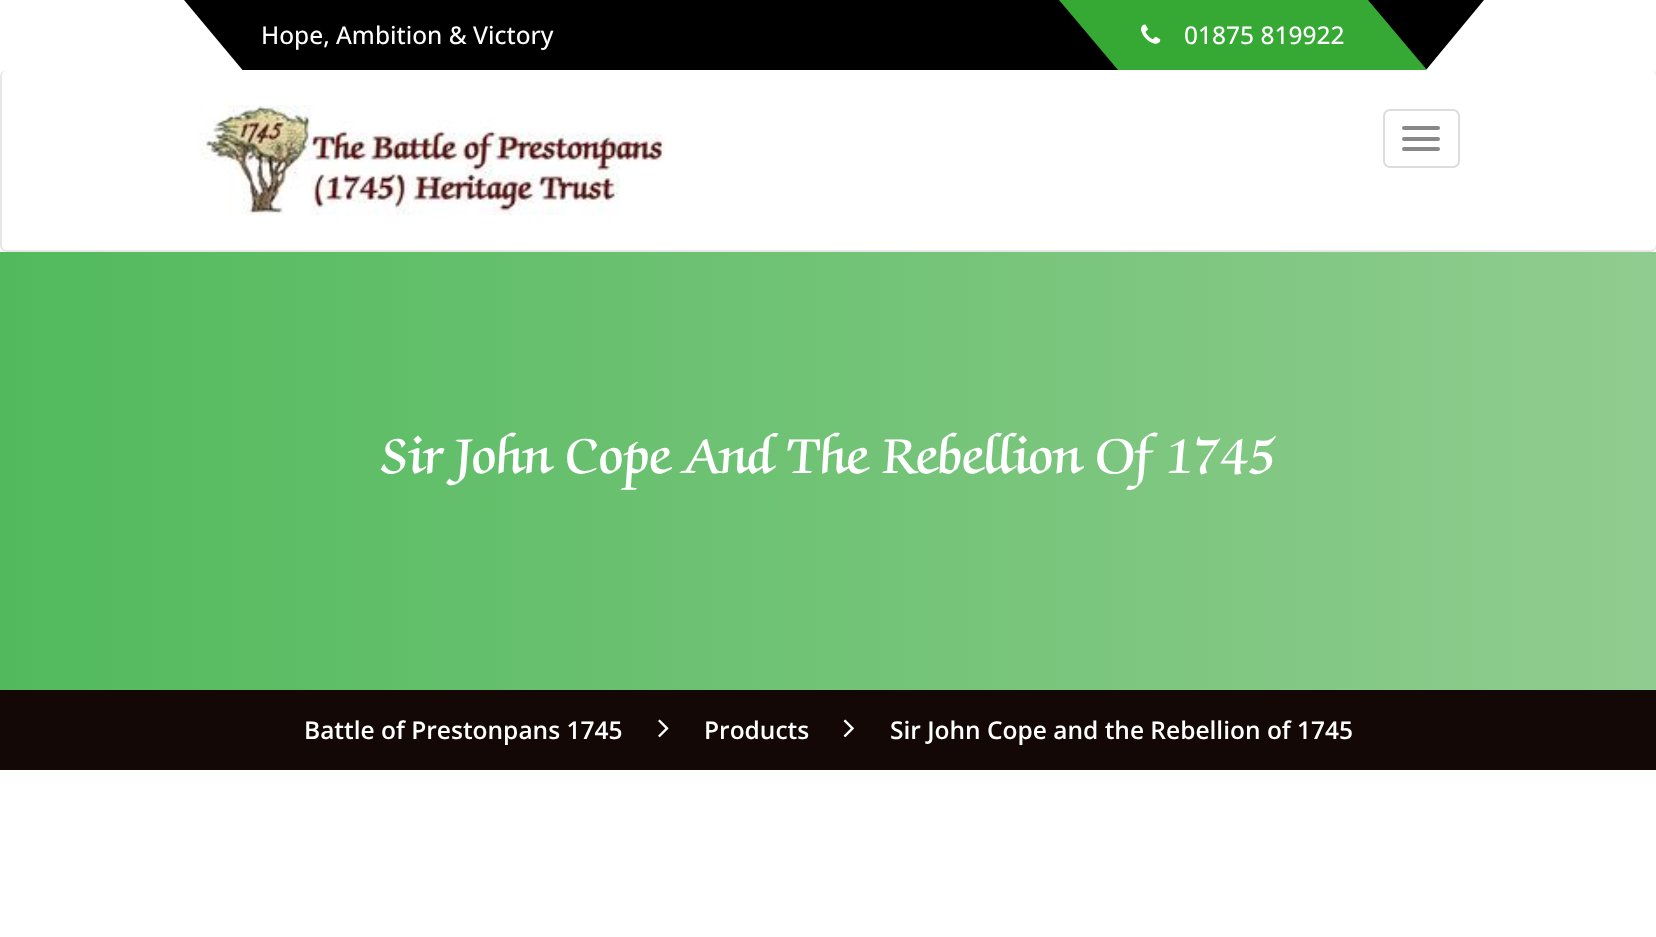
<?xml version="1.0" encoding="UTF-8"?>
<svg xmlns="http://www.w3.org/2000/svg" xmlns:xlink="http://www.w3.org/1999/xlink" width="1656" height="937">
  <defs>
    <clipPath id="clip1"><rect x="173" width="1313" height="70" /></clipPath>
    <linearGradient id="g1" gradientUnits="userSpaceOnUse" x1="0" y1="471" x2="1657" y2="471"><stop offset="0" stop-color="#52ba5d" /><stop offset="1" stop-color="#90cc8f" /></linearGradient>
  </defs>
  <rect width="100%" height="100%" fill="#ffffff" />
  <rect x="184" width="1300" height="70" fill="#000000" />
  <g clip-path="url(#clip1)">
    <path d="M 44 0 h 140 l 117 140 h -140 z" fill="#ffffff" />
  </g>
  <path d="M 1059 0 h 309 l 59 70 h -309 z" fill="#36a834" />
  <image x="1141" y="24" width="20" height="20" xlink:href="image1.png" />
  <g clip-path="url(#clip1)">
    <path d="M 1484 0 h 140 l -58 70 h -140 z" fill="#ffffff" />
  </g>
  <path d="M 7 70 h 1643 c 4 0 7 3 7 7 v 168 c 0 4 -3 7 -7 7 h -1643 c -4 0 -7 -3 -7 -7 v -168 c 0 -4 3 -7 7 -7 z m 0 0 h 1643 c 3 0 6 3 6 7 v 168 c 0 3 -3 5 -6 5 h -1643 c -3 0 -5 -2 -5 -5 v -168 c 0 -4 2 -7 5 -7 z" fill="#e7e7e7" fill-rule="evenodd" />
  <image x="199" y="105" width="466" height="111" xlink:href="image2.png" />
  <rect x="1384" y="110" width="75" height="57" rx="6" fill="none" stroke="#dddddd" stroke-width="2" />
  <rect x="1402" y="126" width="38" height="4" rx="2" fill="#888888" />
  <rect x="1402" y="137" width="38" height="4" rx="2" fill="#888888" />
  <rect x="1402" y="147" width="38" height="4" rx="2" fill="#888888" />
  <rect y="252" width="1656" height="438" fill="url(#g1)" />
  <rect y="690" width="1656" height="80" fill="#130805" />
  <image x="658" y="719" width="11" height="19" xlink:href="image3.png" />
  <image x="843" y="719" width="11" height="19" xlink:href="image4.png" />
  <text x="261" y="44" style="font-family: Open Sans; font-size: 24.5px; font-weight: 500; fill: #ffffff">Hope, Ambition &amp; Victory</text>
  <text x="1184" y="44" style="font-family: Open Sans; font-size: 24.5px; font-weight: 500; fill: #ffffff">01875 819922</text>
  <text x="381" y="473" style="font-family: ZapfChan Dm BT; font-size: 56px; fill: #ffffff">Sir John Cope And The Rebellion Of 1745</text>
  <text x="304" y="739" style="font-family: Open Sans; font-size: 24.5px; font-weight: 600; fill: #ffffff">Battle of Prestonpans 1745</text>
  <text x="704" y="739" style="font-family: Open Sans; font-size: 24.5px; font-weight: 600; fill: #ffffff">Products</text>
  <text x="890" y="739" style="font-family: Open Sans; font-size: 24.5px; font-weight: 600; fill: #ffffff">Sir John Cope and the Rebellion of 1745</text>
</svg>
